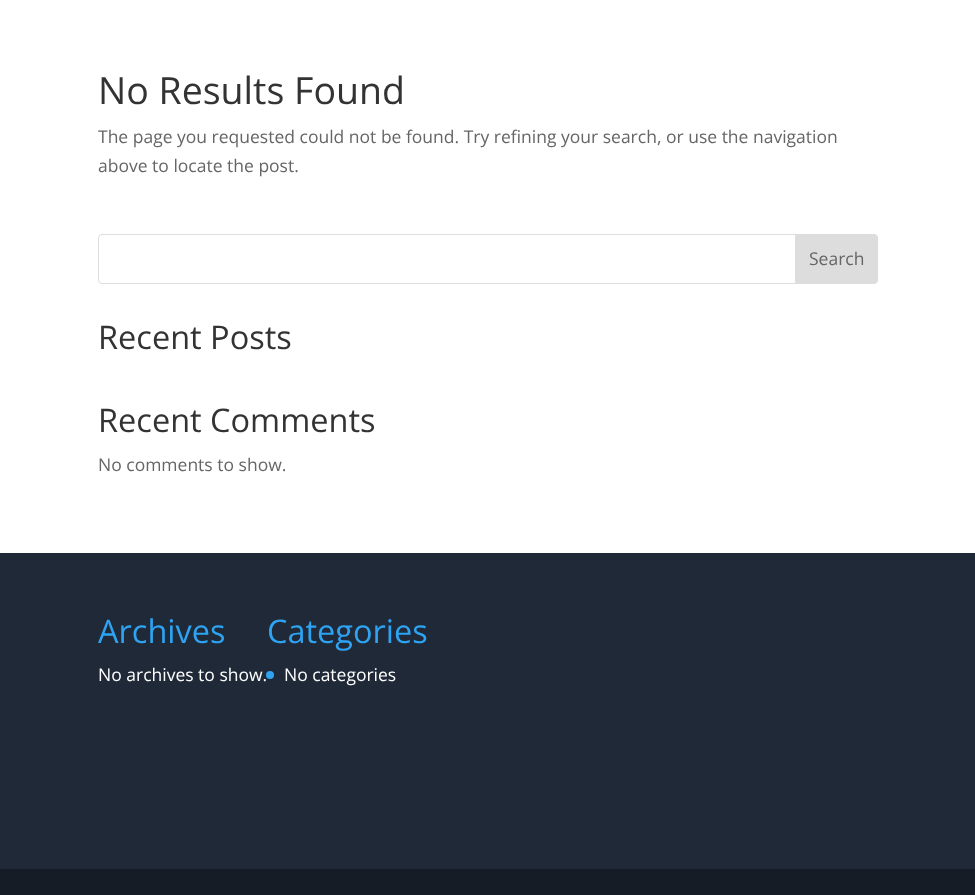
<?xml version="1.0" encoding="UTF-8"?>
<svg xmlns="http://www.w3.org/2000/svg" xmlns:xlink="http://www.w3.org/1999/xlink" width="975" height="895">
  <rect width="100%" height="100%" fill="#ffffff" />
  <rect x="98.5" y="234.5" width="779" height="49" rx="3.5" fill="none" stroke="#dddddd" />
  <path d="M 795.5 234.5 h 78.5 c 2 0 3.5 1.5 3.5 3.5 v 42 c 0 2 -1.5 3.5 -3.5 3.5 h -78.5 z" fill="#dddddd" stroke="#dddddd" />
  <rect y="553" width="975" height="316" fill="#1f2937" />
  <circle cx="270" cy="675" r="4" fill="#2ea3f2" />
  <rect y="869" width="975" height="26" fill="#151c25" />
  <text x="98" y="104" style="font-family: Open Sans; font-size: 37.5px; fill: #333333">No Results Found</text>
  <text x="98" y="143" style="font-family: Open Sans; font-size: 17.5px; fill: #666666">The page you requested could not be found. Try refining your search, or use the navigation</text>
  <text x="98" y="172" style="font-family: Open Sans; font-size: 17.5px; fill: #666666">above to locate the post.</text>
  <text x="809" y="265" style="font-family: Open Sans; font-size: 17.5px; fill: #666666">Search</text>
  <text x="98" y="349" style="font-family: Open Sans; font-size: 32.5px; fill: #333333">Recent Posts</text>
  <text x="98" y="432" style="font-family: Open Sans; font-size: 32.5px; fill: #333333">Recent Comments</text>
  <text x="98" y="471" style="font-family: Open Sans; font-size: 17.5px; fill: #666666">No comments to show.</text>
  <text x="98" y="643" style="font-family: Open Sans; font-size: 32.5px; fill: #2ea3f2">Archives</text>
  <text x="98" y="681" style="font-family: Open Sans; font-size: 17.5px; fill: #ffffff">No archives to show.</text>
  <text x="267" y="643" style="font-family: Open Sans; font-size: 32.5px; fill: #2ea3f2">Categories</text>
  <text x="284" y="681" style="font-family: Open Sans; font-size: 17.5px; fill: #ffffff">No categories</text>
</svg>
